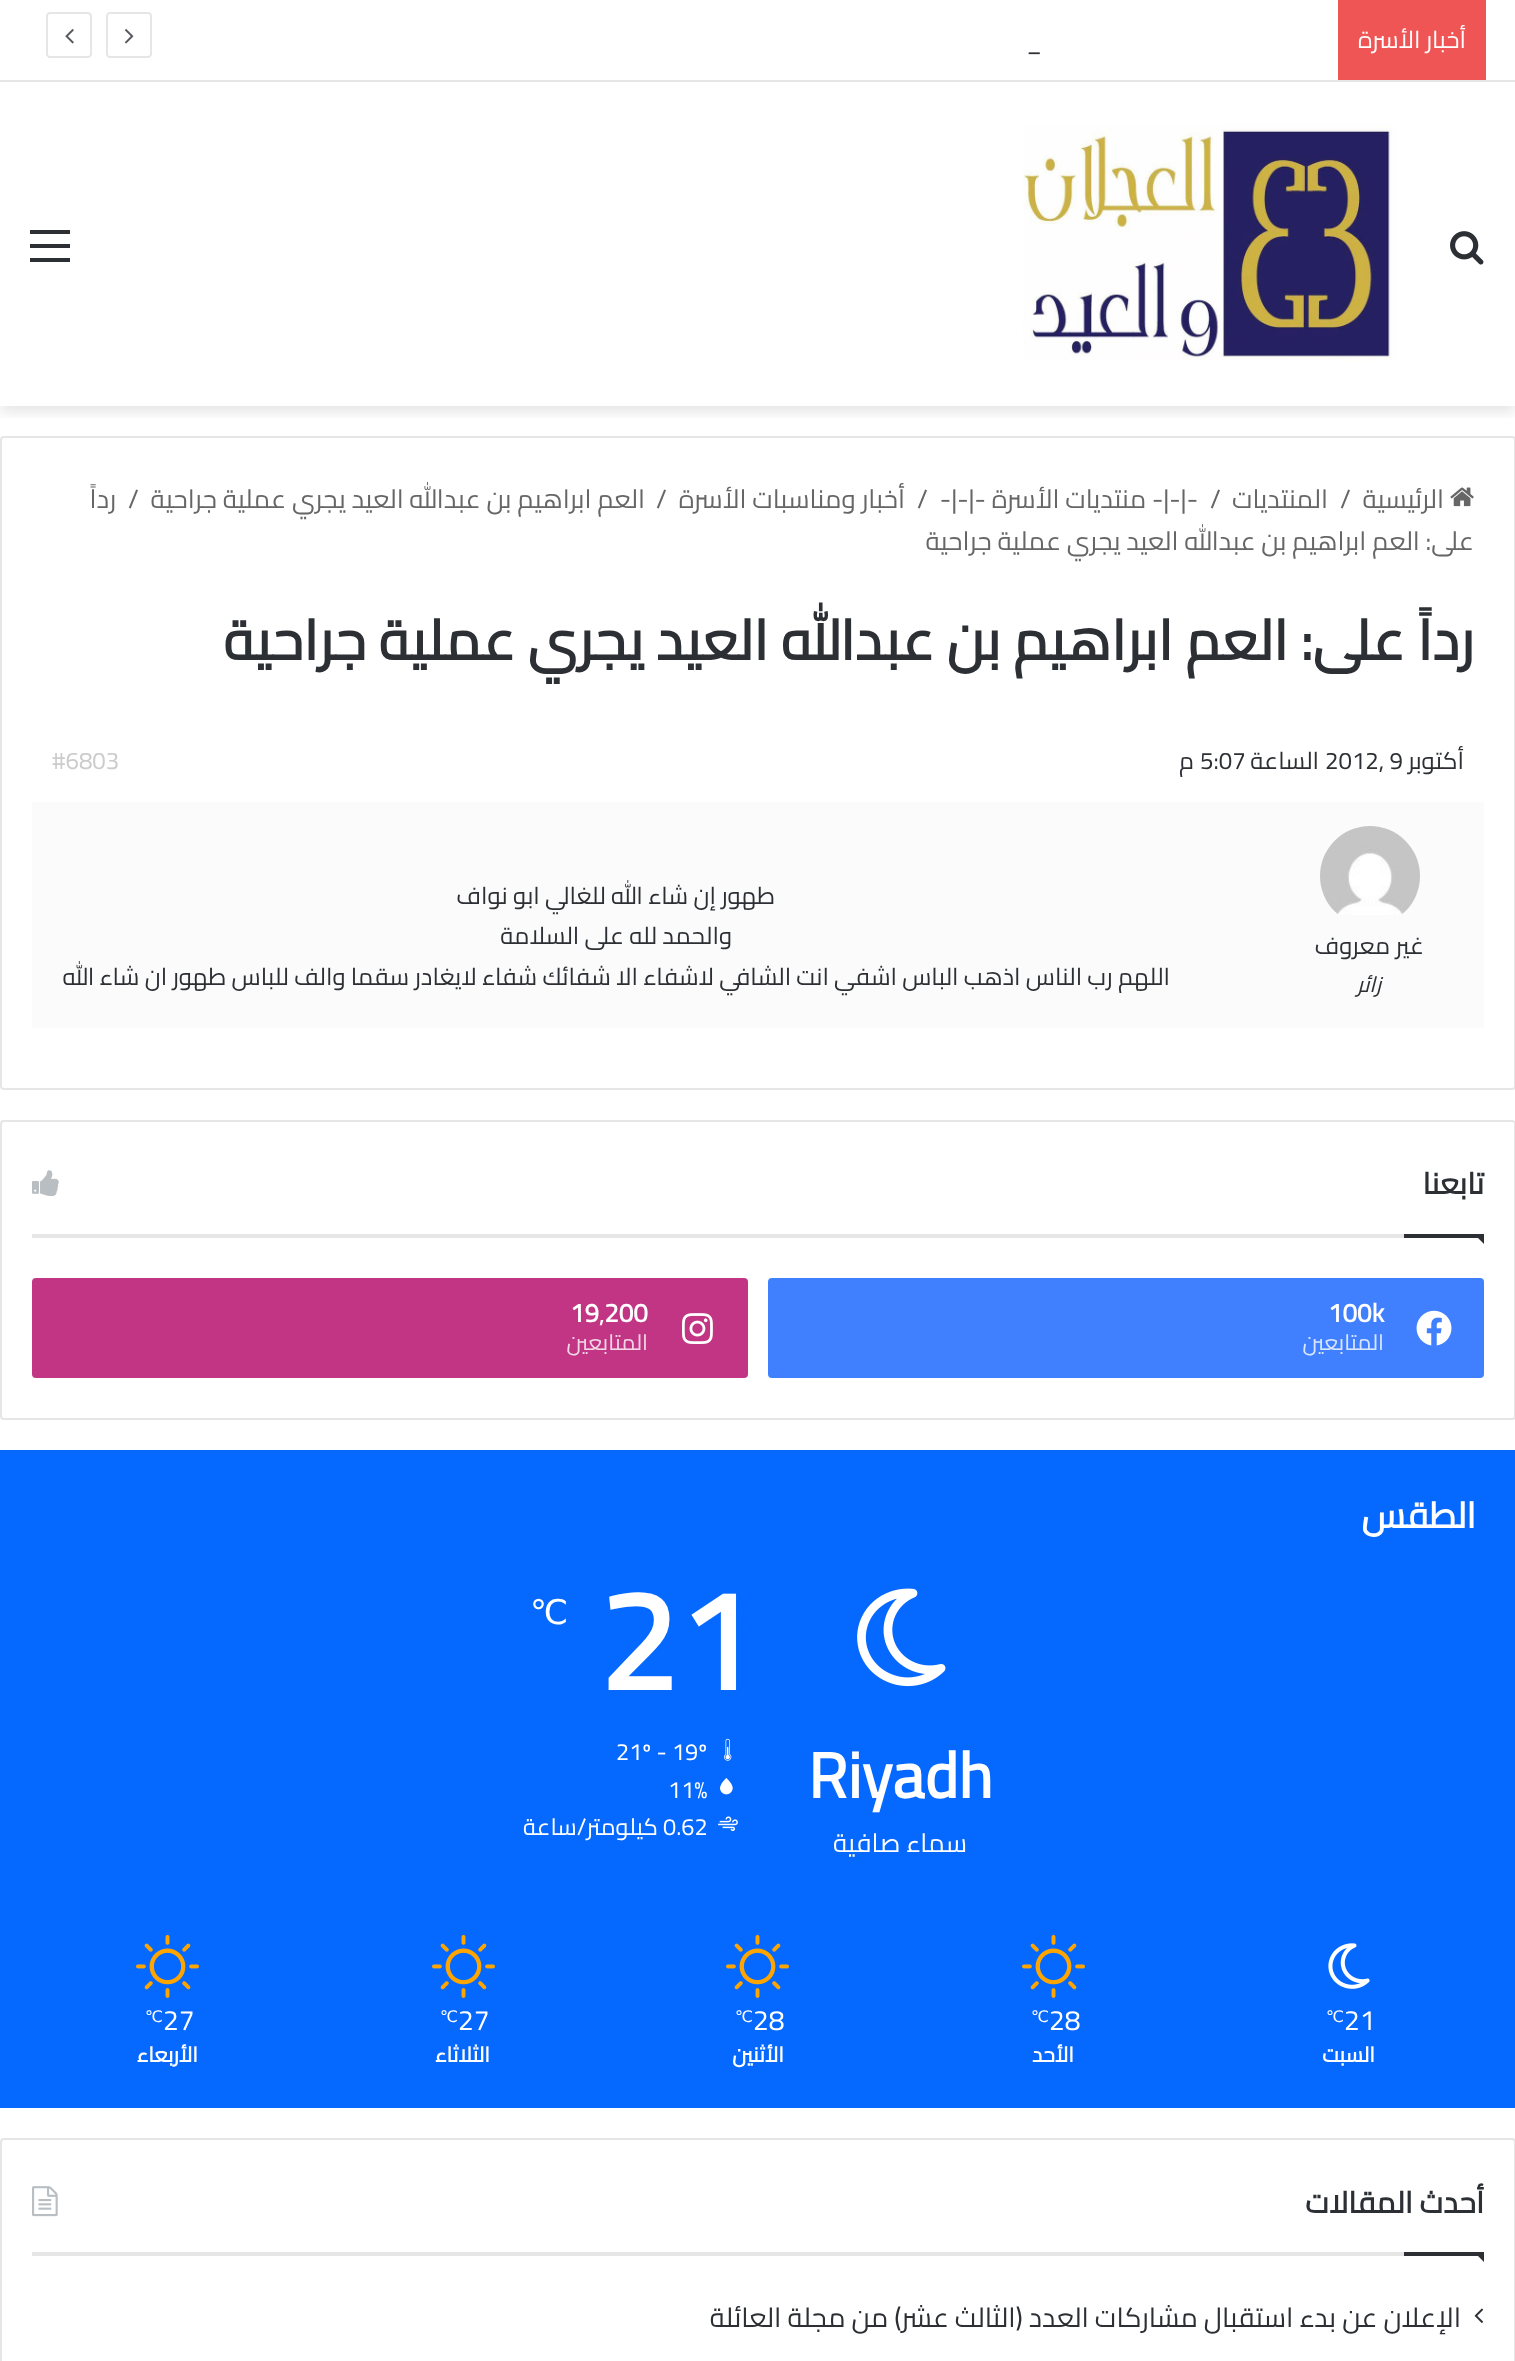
<?xml version="1.0" encoding="UTF-8"?>
<svg xmlns="http://www.w3.org/2000/svg" xmlns:xlink="http://www.w3.org/1999/xlink" width="1515" height="2361">
  <defs>
    <clipPath id="clip1"><rect x="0" y="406" width="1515" height="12" /></clipPath>
  </defs>
  <rect width="100%" height="100%" fill="#ffffff" />
  <g clip-path="url(#clip1)">
    <rect y="88" width="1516" height="324" fill="#000000" fill-opacity="0.1" filter="blur(7px)" />
  </g>
  <rect x="9" y="79" width="1498" height="1" fill="#ffffff" />
  <rect y="80" width="1515" height="2" fill="#e6e6e6" />
  <rect x="1338" width="148" height="80" fill="#f05555" />
  <path d="M 148 57 h -38 c -1.5 0 -3 -1.5 -3 -3 v -38 c 0 -1.5 1.5 -3 3 -3 h 38 c 1.5 0 3 1.5 3 3 v 38 c 0 1.5 -1.5 3 -3 3 z" fill="none" stroke="#e6e6e6" stroke-width="2" />
  <image x="124" y="29" width="10" height="15" xlink:href="image1.png" />
  <path d="M 88 57 h -38 c -1.5 0 -3 -1.5 -3 -3 v -38 c 0 -1.5 1.5 -3 3 -3 h 38 c 1.5 0 3 1.5 3 3 v 38 c 0 1.5 -1.5 3 -3 3 z" fill="none" stroke="#e6e6e6" stroke-width="2" />
  <image x="65" y="29" width="9" height="15" xlink:href="image2.png" />
  <image x="1450" y="231" width="34" height="34" xlink:href="image3.png" />
  <image x="1023" y="125" width="373" height="236" xlink:href="image4.png" />
  <rect x="30" y="244" width="40" height="4" fill="#2c2f34" />
  <rect x="30" y="230" width="40" height="4" fill="#2c2f34" />
  <rect x="30" y="258" width="40" height="4" fill="#2c2f34" />
  <rect x="1" y="437" width="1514" height="652" rx="3" fill="none" stroke="#e6e6e6" stroke-width="2" />
  <image x="1450" y="487" width="24" height="20" xlink:href="image5.png" />
  <rect x="32" y="802" width="1452" height="226" fill="#fbfbfb" />
  <image x="1320" y="826" width="100" height="89" xlink:href="image6.png" />
  <rect x="1" y="1121" width="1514" height="298" rx="3" fill="none" stroke="#e6e6e6" stroke-width="2" />
  <rect x="32" y="1234" width="1372" height="4" fill="#e6e6e6" />
  <image x="32" y="1170" width="27" height="26" xlink:href="image7.png" />
  <path d="M 1474 1234 h 10 v 10 z" fill="#2c2f34" />
  <rect x="1404" y="1234" width="80" height="4" fill="#2c2f34" />
  <rect x="768" y="1278" width="716" height="100" rx="4" fill="#4080ff" />
  <image x="1416" y="1310" width="36" height="36" xlink:href="image8.png" />
  <rect x="32" y="1278" width="716" height="100" rx="4" fill="#c13584" />
  <image x="682" y="1313" width="31" height="31" xlink:href="image9.png" />
  <rect y="1450" width="1515" height="658" fill="#0669ff" />
  <image x="857" y="1588" width="89" height="99" xlink:href="image10.png" />
  <image x="724" y="1738" width="8" height="23" xlink:href="image11.png" />
  <image x="720" y="1778" width="13" height="17" xlink:href="image12.png" />
  <image x="718" y="1816" width="20" height="16" xlink:href="image13.png" />
  <image x="1328" y="1943" width="42" height="46" xlink:href="image14.png" />
  <image x="1022" y="1935" width="63" height="63" xlink:href="image15.png" />
  <image x="726" y="1935" width="63" height="63" xlink:href="image15.png" />
  <image x="432" y="1935" width="63" height="63" xlink:href="image15.png" />
  <image x="136" y="1935" width="63" height="63" xlink:href="image15.png" />
  <rect x="1" y="2139" width="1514" height="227" rx="3" fill="none" stroke="#e6e6e6" stroke-width="2" />
  <rect x="32" y="2252" width="1372" height="4" fill="#e6e6e6" />
  <image x="32" y="2186" width="26" height="31" xlink:href="image16.png" />
  <path d="M 1474 2252 h 10 v 10 z" fill="#2c2f34" />
  <rect x="1404" y="2252" width="80" height="4" fill="#2c2f34" />
  <image x="1474" y="2308" width="10" height="15" xlink:href="image17.png" />
  <text x="1466" y="48" style="font-family: Cairo; font-size: 24px; direction: rtl; fill: #ffffff">أخبار الأسرة</text>
  <text x="1026" y="50" style="font-family: Cairo; font-size: 26px; fill: #2c2f34">_</text>
  <text x="1444" y="508" style="font-family: Cairo; font-size: 26px; direction: rtl; fill: #666666">الرئيسية</text>
  <text x="1340" y="508" style="font-family: Cairo; font-size: 26px; fill: #666666">/</text>
  <text x="1328" y="508" style="font-family: Cairo; font-size: 26px; direction: rtl; fill: #666666">المنتديات</text>
  <text x="1210" y="508" style="font-family: Cairo; font-size: 26px; fill: #666666">/</text>
  <text x="1198" y="508" style="font-family: Cairo; font-size: 26px; direction: rtl; fill: #666666">-|-|- منتديات الأسرة -|-|-</text>
  <text x="917" y="508" style="font-family: Cairo; font-size: 26px; fill: #666666">/</text>
  <text x="905" y="508" style="font-family: Cairo; font-size: 26px; direction: rtl; fill: #666666">أخبار ومناسبات الأسرة</text>
  <text x="656" y="508" style="font-family: Cairo; font-size: 26px; fill: #666666">/</text>
  <text x="645" y="508" style="font-family: Cairo; font-size: 26px; direction: rtl; fill: #666666">العم ابراهيم بن عبدالله العيد يجري عملية جراحية</text>
  <text x="128" y="508" style="font-family: Cairo; font-size: 26px; fill: #666666">/</text>
  <text x="116" y="508" style="font-family: Cairo; font-size: 26px; direction: rtl; fill: #666666">رداً</text>
  <text x="1474" y="550" style="font-family: Cairo; font-size: 26px; direction: rtl; fill: #666666">على: العم ابراهيم بن عبدالله العيد يجري عملية جراحية</text>
  <text x="1474" y="660" style="font-family: Cairo; font-size: 56px; font-weight: bold; direction: rtl; fill: #2c2f34">رداً على: العم ابراهيم بن عبدالله العيد يجري عملية جراحية</text>
  <text x="1464" y="769" style="font-family: Cairo; font-size: 24px; direction: rtl; fill: #2c2f34">أكتوبر</text>
  <text x="1325" y="769" style="font-family: Cairo; font-size: 24px; fill: #2c2f34">2012, 9</text>
  <text x="1319" y="769" style="font-family: Cairo; font-size: 24px; direction: rtl; fill: #2c2f34">الساعة</text>
  <text x="1200" y="769" style="font-family: Cairo; font-size: 24px; fill: #2c2f34">5:07</text>
  <text x="1194" y="769" style="font-family: Cairo; font-size: 24px; direction: rtl; fill: #2c2f34">م</text>
  <text x="52" y="769" style="font-family: Cairo; font-size: 24px; fill: #cccccc">#6803</text>
  <text x="1424" y="954" style="font-family: Cairo; font-size: 24px; direction: rtl; fill: #2c2f34">غير معروف</text>
  <text x="1381" y="992" style="font-family: Cairo; font-size: 22px; font-style: italic; direction: rtl; fill: #2c2f34">زائر</text>
  <text x="775" y="904" style="font-family: Cairo; font-size: 24px; direction: rtl; fill: #2c2f34">طهور إن شاء الله للغالي ابو نواف</text>
  <text x="732" y="944" style="font-family: Cairo; font-size: 24px; direction: rtl; fill: #2c2f34">والحمد لله على السلامة</text>
  <text x="1170" y="985" style="font-family: Cairo; font-size: 24px; direction: rtl; fill: #2c2f34">اللهم رب الناس اذهب الباس اشفي انت الشافي لاشفاء الا شفائك شفاء لايغادر سقما والف للباس طهور ان شاء الله</text>
  <text x="1484" y="1194" style="font-family: Cairo; font-size: 30px; font-weight: bold; direction: rtl; fill: #2c2f34">تابعنا</text>
  <text x="1328" y="1322" style="font-family: Cairo; font-size: 26px; font-weight: bold; fill: #ffffff">100k</text>
  <text x="1384" y="1350" style="font-family: Cairo; font-size: 22px; direction: rtl; fill: #d9e6ff">المتابعين</text>
  <text x="570" y="1322" style="font-family: Cairo; font-size: 26px; font-weight: bold; fill: #ffffff">19٬200</text>
  <text x="648" y="1350" style="font-family: Cairo; font-size: 22px; direction: rtl; fill: #f3d7e6">المتابعين</text>
  <text x="1476" y="1528" style="font-family: Cairo; font-size: 36px; font-weight: bold; direction: rtl; fill: #ffffff">الطقس</text>
  <text x="808" y="1798" style="font-family: Cairo; font-size: 64px; font-weight: bold; fill: #ffffff">Riyadh</text>
  <text x="967" y="1852" style="font-family: Cairo; font-size: 26px; direction: rtl; fill: #ffffff">سماء صافية</text>
  <text x="599" y="1690" style="font-family: Cairo; font-size: 140px; font-weight: bold; fill: #ffffff">21</text>
  <text x="530" y="1624" style="font-family: DejaVu Sans; font-size: 34px; fill: #ffffff">℃</text>
  <text x="616" y="1760" style="font-family: Cairo; font-size: 23.5px; fill: #ffffff">21º - 19º</text>
  <text x="668" y="1798" style="font-family: Cairo; font-size: 23.5px; fill: #ffffff">11%</text>
  <text x="663" y="1835" style="font-family: Cairo; font-size: 23.5px; fill: #ffffff">0.62</text>
  <text x="658" y="1835" style="font-family: Cairo; font-size: 23.5px; direction: rtl; fill: #ffffff">كيلومتر/ساعة</text>
  <text x="1344" y="2030" style="font-family: Cairo; font-size: 28px; fill: #ffffff">21</text>
  <text x="1326" y="2022" style="font-family: DejaVu Sans; font-size: 16px; fill: #ffffff">℃</text>
  <text x="1375" y="2062" style="font-family: Cairo; font-size: 21px; font-weight: bold; direction: rtl; fill: #ffffff">السبت</text>
  <text x="1049" y="2030" style="font-family: Cairo; font-size: 28px; fill: #ffffff">28</text>
  <text x="1031" y="2022" style="font-family: DejaVu Sans; font-size: 16px; fill: #ffffff">℃</text>
  <text x="1074" y="2062" style="font-family: Cairo; font-size: 21px; font-weight: bold; direction: rtl; fill: #ffffff">الأحد</text>
  <text x="753" y="2030" style="font-family: Cairo; font-size: 28px; fill: #ffffff">28</text>
  <text x="735" y="2022" style="font-family: DejaVu Sans; font-size: 16px; fill: #ffffff">℃</text>
  <text x="784" y="2062" style="font-family: Cairo; font-size: 21px; font-weight: bold; direction: rtl; fill: #ffffff">الأثنين</text>
  <text x="458" y="2030" style="font-family: Cairo; font-size: 28px; fill: #ffffff">27</text>
  <text x="440" y="2022" style="font-family: DejaVu Sans; font-size: 16px; fill: #ffffff">℃</text>
  <text x="490" y="2062" style="font-family: Cairo; font-size: 21px; font-weight: bold; direction: rtl; fill: #ffffff">الثلاثاء</text>
  <text x="163" y="2030" style="font-family: Cairo; font-size: 28px; fill: #ffffff">27</text>
  <text x="145" y="2022" style="font-family: DejaVu Sans; font-size: 16px; fill: #ffffff">℃</text>
  <text x="198" y="2062" style="font-family: Cairo; font-size: 21px; font-weight: bold; direction: rtl; fill: #ffffff">الأربعاء</text>
  <text x="1484" y="2213" style="font-family: Cairo; font-size: 30px; font-weight: bold; direction: rtl; fill: #2c2f34">أحدث المقالات</text>
  <text x="1461" y="2327" style="font-family: Cairo; font-size: 27.3px; direction: rtl; fill: #2c2f34">الإعلان عن بدء استقبال مشاركات العدد (الثالث عشر) من مجلة العائلة</text>
</svg>
